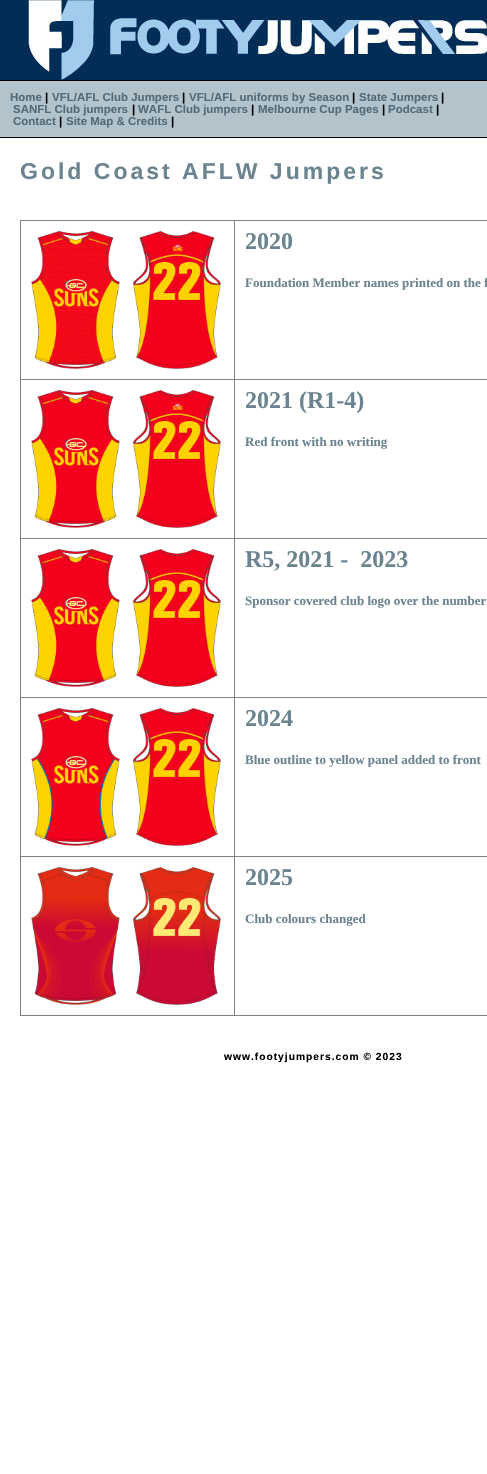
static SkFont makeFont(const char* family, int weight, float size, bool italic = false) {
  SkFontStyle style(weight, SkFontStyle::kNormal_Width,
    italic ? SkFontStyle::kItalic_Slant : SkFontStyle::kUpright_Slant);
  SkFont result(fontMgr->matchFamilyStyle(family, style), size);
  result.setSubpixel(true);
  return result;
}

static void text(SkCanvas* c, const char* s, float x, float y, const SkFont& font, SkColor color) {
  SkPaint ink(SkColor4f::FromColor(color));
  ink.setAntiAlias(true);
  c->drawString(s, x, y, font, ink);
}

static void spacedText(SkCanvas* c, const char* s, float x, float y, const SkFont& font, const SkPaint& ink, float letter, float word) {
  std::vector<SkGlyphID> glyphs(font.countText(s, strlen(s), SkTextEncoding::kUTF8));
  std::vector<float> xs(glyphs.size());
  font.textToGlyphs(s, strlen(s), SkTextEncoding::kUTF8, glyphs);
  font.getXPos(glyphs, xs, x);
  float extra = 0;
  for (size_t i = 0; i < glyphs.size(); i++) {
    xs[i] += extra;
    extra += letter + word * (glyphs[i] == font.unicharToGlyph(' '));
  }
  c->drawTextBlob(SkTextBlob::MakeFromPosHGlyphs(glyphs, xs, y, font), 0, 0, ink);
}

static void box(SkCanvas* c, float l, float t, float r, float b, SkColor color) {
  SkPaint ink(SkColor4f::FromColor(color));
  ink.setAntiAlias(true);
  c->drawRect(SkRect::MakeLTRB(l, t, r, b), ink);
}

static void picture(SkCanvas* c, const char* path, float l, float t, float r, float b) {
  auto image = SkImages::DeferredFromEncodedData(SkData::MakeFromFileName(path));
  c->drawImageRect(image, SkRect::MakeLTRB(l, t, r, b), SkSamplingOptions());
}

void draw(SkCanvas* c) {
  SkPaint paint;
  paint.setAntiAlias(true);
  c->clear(0xffffffff);
  box(c, 0, 0, 24, 80, 0xff012e57);
  picture(c, "img_01.png", 24, 0, 487, 80);
  box(c, 0, 81, 487, 137, 0xffb2c3cc);
  box(c, 0, 80, 487, 81, 0xff000000);
  box(c, 0, 137, 487, 138, 0xff000000);
  SkFont face1 = makeFont("Liberation Sans", 700, 11.5f);
  text(c, "Home", 10, 101, face1, 0xff536b77);
  text(c, "|", 45, 101, face1, 0xff000000);
  text(c, "VFL/AFL Club Jumpers", 52, 101, face1, 0xff536b77);
  text(c, "|", 182, 101, face1, 0xff000000);
  text(c, "VFL/AFL uniforms by Season", 189, 101, face1, 0xff536b77);
  text(c, "|", 352, 101, face1, 0xff000000);
  text(c, "State Jumpers", 359, 101, face1, 0xff536b77);
  text(c, "|", 441, 101, face1, 0xff000000);
  text(c, "SANFL Club jumpers", 13, 113, face1, 0xff536b77);
  text(c, "|", 132, 113, face1, 0xff000000);
  text(c, "WAFL Club jumpers", 138, 113, face1, 0xff536b77);
  text(c, "|", 251, 113, face1, 0xff000000);
  text(c, "Melbourne Cup Pages", 258, 113, face1, 0xff536b77);
  text(c, "|", 382, 113, face1, 0xff000000);
  text(c, "Podcast", 388, 113, face1, 0xff536b77);
  text(c, "|", 436, 113, face1, 0xff000000);
  text(c, "Contact", 13, 125, face1, 0xff536b77);
  text(c, "|", 59, 125, face1, 0xff000000);
  text(c, "Site Map & Credits", 66, 125, face1, 0xff536b77);
  text(c, "|", 171, 125, face1, 0xff000000);
  SkFont face2 = makeFont("Liberation Sans", 700, 23);
  paint.setColor(0xff6b8490);
  spacedText(c, "Gold Coast AFLW Jumpers", 20, 179, face2, paint, 3, 0);
  box(c, 20, 220, 487, 221, 0xff808080);
  box(c, 20, 1015, 487, 1016, 0xff808080);
  box(c, 20, 220, 21, 1016, 0xff808080);
  picture(c, "img_02.png", 31, 231, 221, 369);
  box(c, 234, 379, 487, 380, 0xff808080);
  box(c, 234, 538, 487, 539, 0xff808080);
  box(c, 234, 697, 487, 698, 0xff808080);
  box(c, 234, 856, 487, 857, 0xff808080);
  box(c, 234, 856, 235, 1016, 0xff808080);
  box(c, 20, 856, 235, 857, 0xff808080);
  box(c, 234, 697, 235, 857, 0xff808080);
  box(c, 20, 697, 235, 698, 0xff808080);
  box(c, 234, 538, 235, 698, 0xff808080);
  box(c, 20, 538, 235, 539, 0xff808080);
  box(c, 234, 379, 235, 539, 0xff808080);
  box(c, 20, 379, 235, 380, 0xff808080);
  box(c, 234, 220, 235, 380, 0xff808080);
  SkFont face3 = makeFont("Liberation Serif", 700, 24);
  text(c, "2020", 245, 249, face3, 0xff6b8490);
  SkFont face4 = makeFont("Liberation Serif", 700, 13);
  text(c, "Foundation Member names printed on the f", 245, 287, face4, 0xff6b8490);
  picture(c, "img_03.png", 31, 390, 221, 528);
  text(c, "2021 (R1-4)", 245, 408, face3, 0xff6b8490);
  text(c, "Red front with no writing", 245, 446, face4, 0xff6b8490);
  picture(c, "img_04.png", 31, 549, 221, 687);
  text(c, "R5, 2021 -  2023", 245, 567, face3, 0xff6b8490);
  text(c, "Sponsor covered club logo over the number", 245, 605, face4, 0xff6b8490);
  picture(c, "img_05.png", 31, 708, 221, 846);
  text(c, "2024", 245, 726, face3, 0xff6b8490);
  text(c, "Blue outline to yellow panel added to front", 245, 764, face4, 0xff6b8490);
  picture(c, "img_06.png", 31, 867, 221, 1005);
  text(c, "2025", 245, 885, face3, 0xff6b8490);
  text(c, "Club colours changed", 245, 923, face4, 0xff6b8490);
  SkFont face5 = makeFont("Liberation Sans", 700, 10.25f);
  paint.setColor(0xff000000);
  spacedText(c, "www.footyjumpers.com © 2023", 224, 1060, face5, paint, 1, 0);
}
